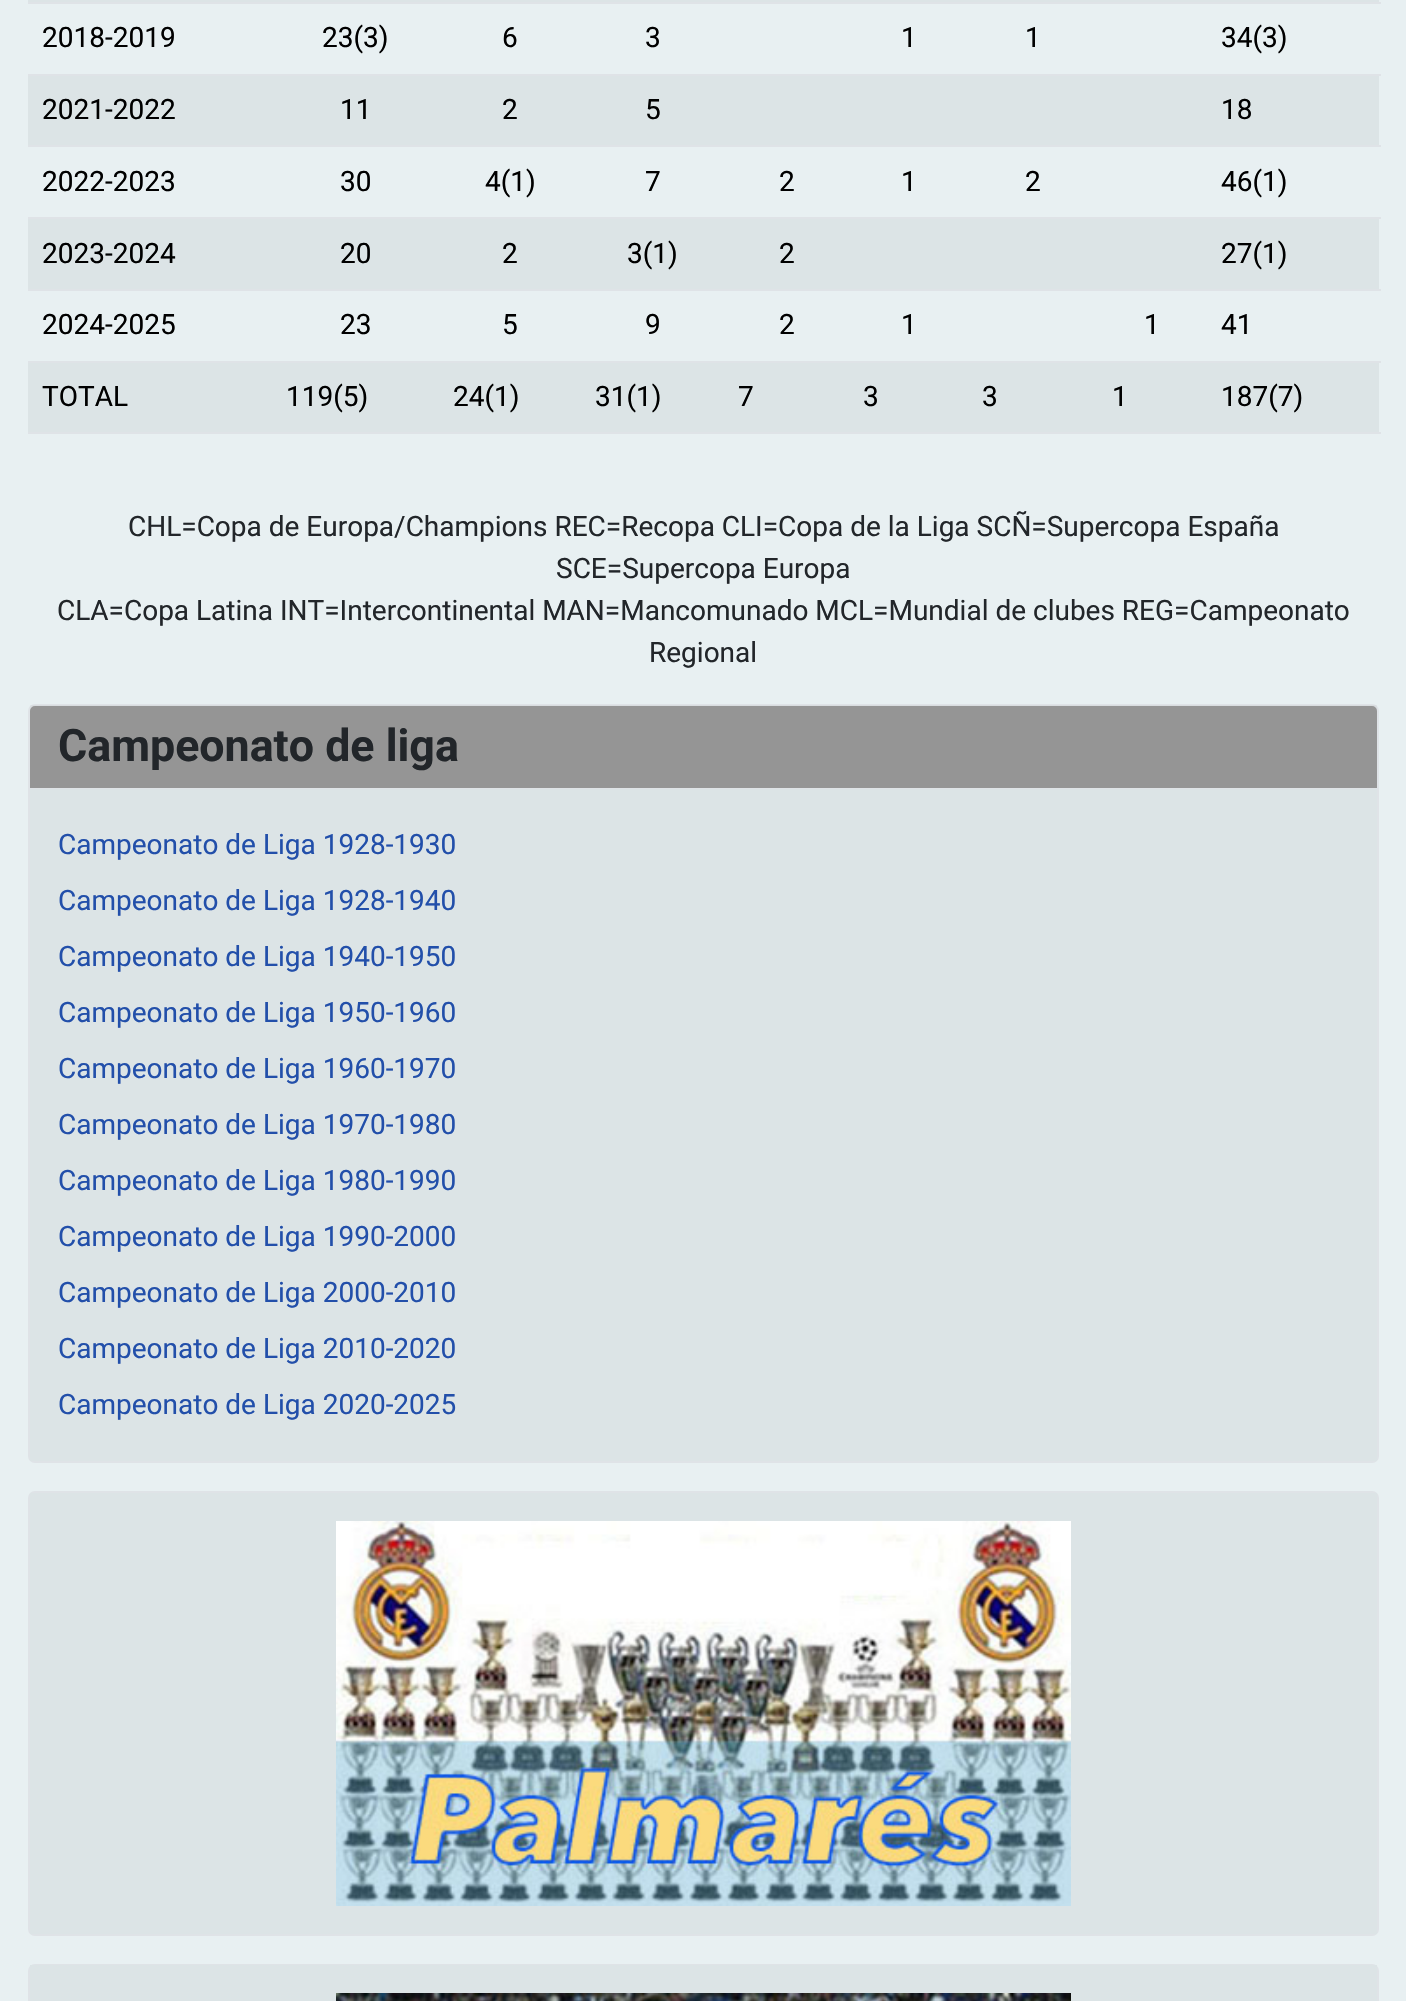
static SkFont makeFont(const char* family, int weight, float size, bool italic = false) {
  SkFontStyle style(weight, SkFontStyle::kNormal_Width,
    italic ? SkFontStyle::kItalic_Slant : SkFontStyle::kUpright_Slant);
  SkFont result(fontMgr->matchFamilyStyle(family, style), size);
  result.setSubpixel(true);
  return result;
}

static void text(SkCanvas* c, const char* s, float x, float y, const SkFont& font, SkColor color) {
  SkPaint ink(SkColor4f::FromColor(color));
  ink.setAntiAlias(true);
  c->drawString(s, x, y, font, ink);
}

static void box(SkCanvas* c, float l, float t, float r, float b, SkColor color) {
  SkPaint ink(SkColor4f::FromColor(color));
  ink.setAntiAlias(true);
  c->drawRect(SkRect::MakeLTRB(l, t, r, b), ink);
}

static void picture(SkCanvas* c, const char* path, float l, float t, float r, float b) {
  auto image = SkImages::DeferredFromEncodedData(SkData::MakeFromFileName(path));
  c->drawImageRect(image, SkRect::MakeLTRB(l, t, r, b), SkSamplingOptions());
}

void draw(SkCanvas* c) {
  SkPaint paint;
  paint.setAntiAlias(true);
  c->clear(0xffe8f0f2);
  box(c, 28, 0, 1379, 2, 0xffdce4e6);
  box(c, 28, 2, 1381, 4, 0xffdfe3e7);
  SkFont face1 = makeFont("Roboto", 400, 28);
  text(c, "2018-2019", 42, 47, face1, 0xff000000);
  text(c, "23(3)", 322, 47, face1, 0xff000000);
  text(c, "6", 502, 47, face1, 0xff000000);
  text(c, "3", 645, 47, face1, 0xff000000);
  text(c, "1", 901, 47, face1, 0xff000000);
  text(c, "1", 1025, 47, face1, 0xff000000);
  box(c, 28, 74, 1381, 76, 0xffdfe3e7);
  text(c, "34(3)", 1221, 47, face1, 0xff000000);
  box(c, 28, 76, 1379, 145, 0xffdce4e6);
  text(c, "2021-2022", 42, 119, face1, 0xff000000);
  text(c, "11", 340, 119, face1, 0xff000000);
  text(c, "2", 502, 119, face1, 0xff000000);
  text(c, "5", 645, 119, face1, 0xff000000);
  box(c, 28, 145, 1381, 147, 0xffdfe3e7);
  text(c, "18", 1221, 119, face1, 0xff000000);
  text(c, "2022-2023", 42, 191, face1, 0xff000000);
  text(c, "30", 340, 191, face1, 0xff000000);
  text(c, "4(1)", 485, 191, face1, 0xff000000);
  text(c, "7", 645, 191, face1, 0xff000000);
  text(c, "2", 779, 191, face1, 0xff000000);
  text(c, "1", 901, 191, face1, 0xff000000);
  text(c, "2", 1025, 191, face1, 0xff000000);
  box(c, 28, 217, 1381, 219, 0xffdfe3e7);
  text(c, "46(1)", 1221, 191, face1, 0xff000000);
  box(c, 28, 219, 1379, 289, 0xffdce4e6);
  text(c, "2023-2024", 42, 263, face1, 0xff000000);
  text(c, "20", 340, 263, face1, 0xff000000);
  text(c, "2", 502, 263, face1, 0xff000000);
  text(c, "3(1)", 627, 263, face1, 0xff000000);
  text(c, "2", 779, 263, face1, 0xff000000);
  box(c, 28, 289, 1381, 291, 0xffdfe3e7);
  text(c, "27(1)", 1221, 263, face1, 0xff000000);
  text(c, "2024-2025", 42, 334, face1, 0xff000000);
  text(c, "23", 340, 334, face1, 0xff000000);
  text(c, "5", 502, 334, face1, 0xff000000);
  text(c, "9", 645, 334, face1, 0xff000000);
  text(c, "2", 779, 334, face1, 0xff000000);
  text(c, "1", 901, 334, face1, 0xff000000);
  text(c, "1", 1144, 334, face1, 0xff000000);
  box(c, 28, 361, 1381, 363, 0xffdfe3e7);
  text(c, "41", 1221, 334, face1, 0xff000000);
  box(c, 28, 363, 1379, 432, 0xffdce4e6);
  text(c, "TOTAL", 42, 406, face1, 0xff000000);
  text(c, "119(5)", 286, 406, face1, 0xff000000);
  text(c, "24(1)", 453, 406, face1, 0xff000000);
  text(c, "31(1)", 595, 406, face1, 0xff000000);
  text(c, "7", 738, 406, face1, 0xff000000);
  text(c, "3", 863, 406, face1, 0xff000000);
  text(c, "3", 982, 406, face1, 0xff000000);
  text(c, "1", 1112, 406, face1, 0xff000000);
  box(c, 28, 432, 1381, 434, 0xffdfe3e7);
  text(c, "187(7)", 1221, 406, face1, 0xff000000);
  text(c, "CHL=Copa de Europa/Champions REC=Recopa CLI=Copa de la Liga SCÑ=Supercopa España", 128, 536, face1, 0xff22262a);
  text(c, "SCE=Supercopa Europa", 556, 578, face1, 0xff22262a);
  text(c, "CLA=Copa Latina INT=Intercontinental MAN=Mancomunado MCL=Mundial de clubes REG=Campeonato", 57, 620, face1, 0xff22262a);
  text(c, "Regional", 649, 662, face1, 0xff22262a);
  paint.setColor(0xff999999);
  c->drawRoundRect(SkRect::MakeLTRB(29, 705, 1378, 1462), 6, 6, paint);
  paint.setStyle(SkPaint::kStroke_Style);
  paint.setStrokeWidth(2);
  paint.setColor(0xffdfe3e7);
  c->drawRoundRect(SkRect::MakeLTRB(29, 705, 1378, 1462), 6, 6, paint);
  box(c, 30, 705, 1377, 788, 0x0822262a);
  box(c, 30, 788, 1377, 789, 0xffdfe3e7);
  SkFont face2 = makeFont("Roboto", 700, 44.75f);
  text(c, "Campeonato de liga", 58, 761, face2, 0xff22262a);
  box(c, 30, 789, 1377, 1461, 0xffdce4e6);
  text(c, "Campeonato de Liga 1928-1930", 58, 854, face1, 0xff224faa);
  text(c, "Campeonato de Liga 1928-1940", 58, 910, face1, 0xff224faa);
  text(c, "Campeonato de Liga 1940-1950", 58, 966, face1, 0xff224faa);
  text(c, "Campeonato de Liga 1950-1960", 58, 1022, face1, 0xff224faa);
  text(c, "Campeonato de Liga 1960-1970", 58, 1078, face1, 0xff224faa);
  text(c, "Campeonato de Liga 1970-1980", 58, 1134, face1, 0xff224faa);
  text(c, "Campeonato de Liga 1980-1990", 58, 1190, face1, 0xff224faa);
  text(c, "Campeonato de Liga 1990-2000", 58, 1246, face1, 0xff224faa);
  text(c, "Campeonato de Liga 2000-2010", 58, 1302, face1, 0xff224faa);
  text(c, "Campeonato de Liga 2010-2020", 58, 1358, face1, 0xff224faa);
  text(c, "Campeonato de Liga 2020-2025", 58, 1414, face1, 0xff224faa);
  c->drawRoundRect(SkRect::MakeLTRB(29, 1492, 1378, 1935), 6, 6, paint);
  box(c, 30, 1493, 1377, 1934, 0xffdce4e6);
  picture(c, "img_01.png", 336, 1521, 1071, 1906);
  c->drawRoundRect(SkRect::MakeLTRB(29, 1965, 1378, 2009), 6, 6, paint);
  box(c, 30, 1965, 1377, 2001, 0xffdce4e6);
  picture(c, "img_02.png", 336, 1993, 1071, 2001);
}
